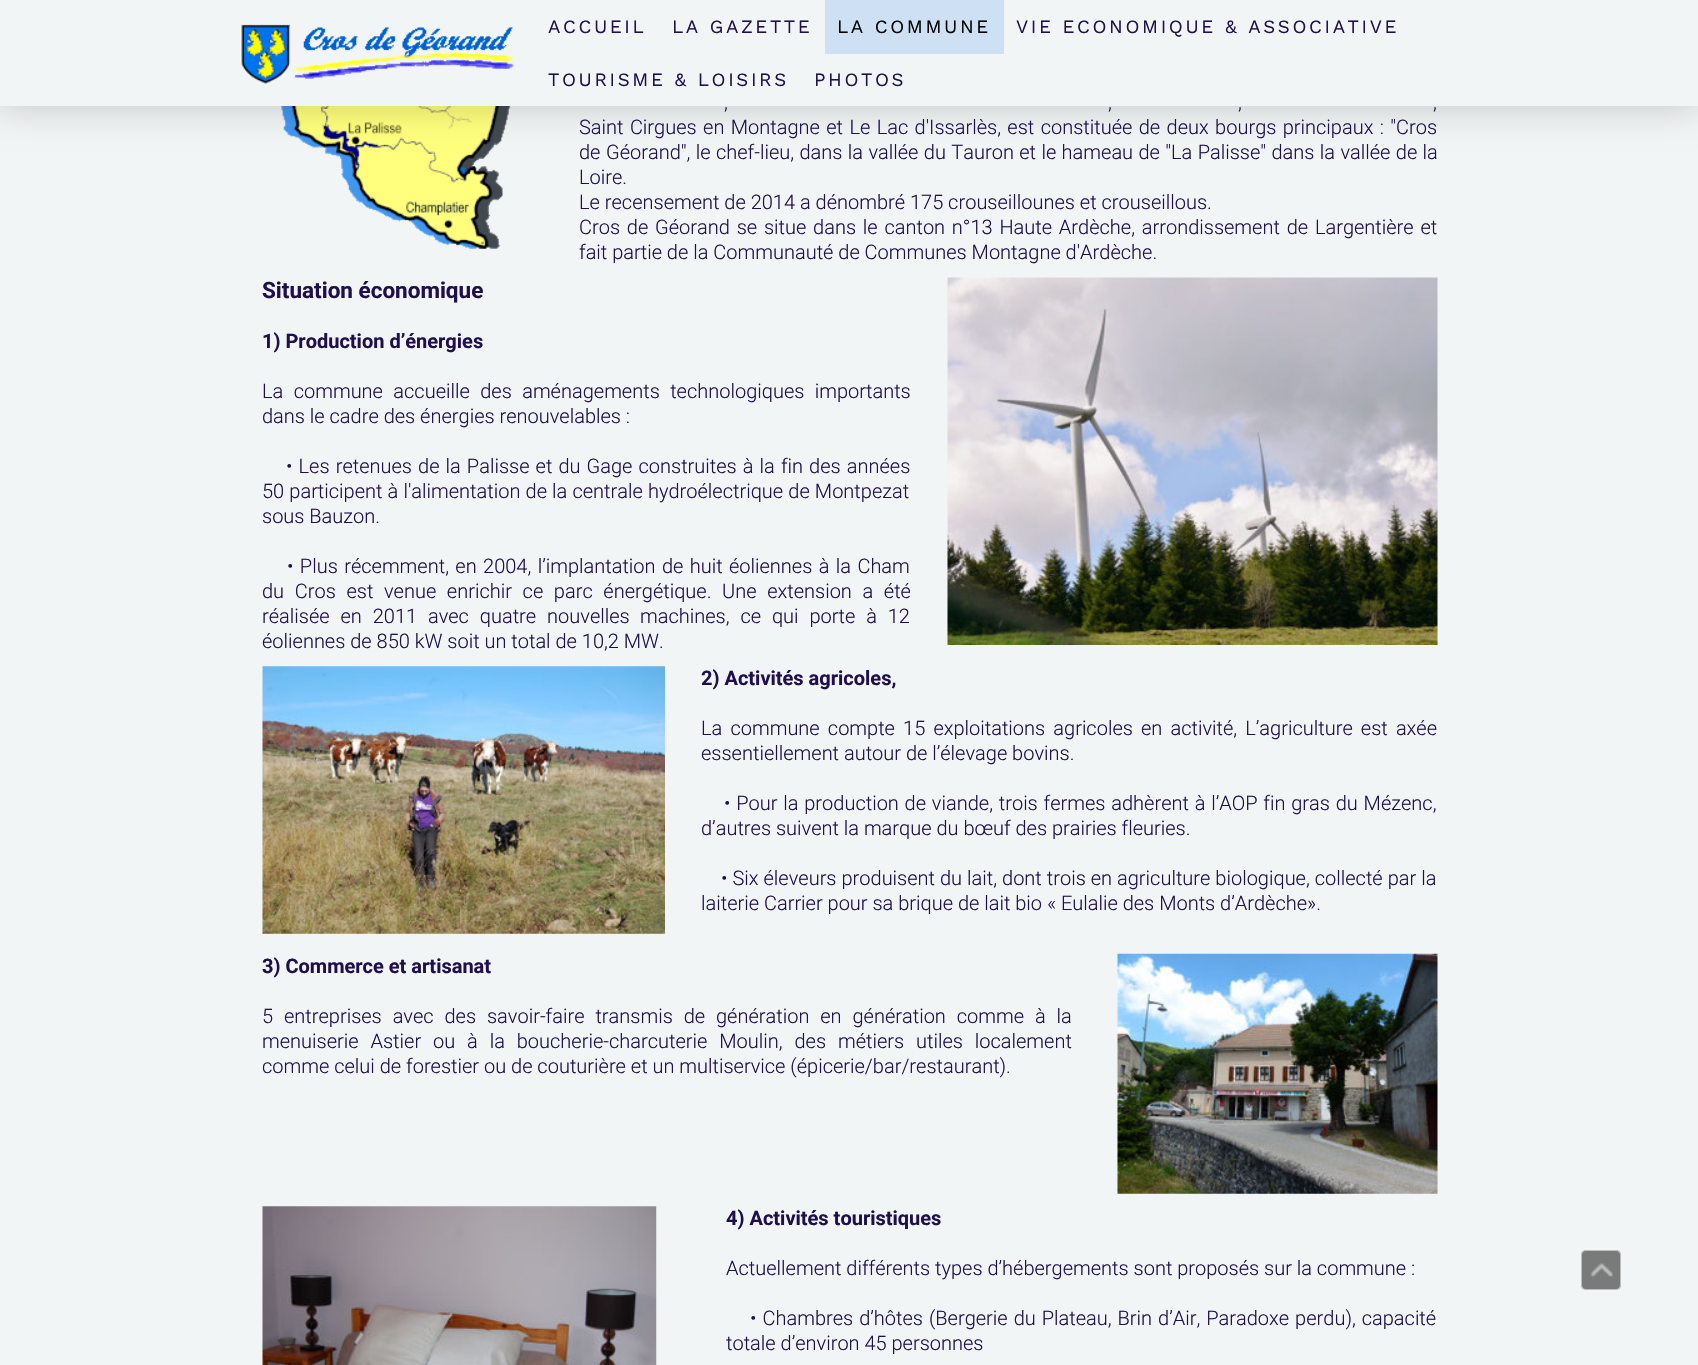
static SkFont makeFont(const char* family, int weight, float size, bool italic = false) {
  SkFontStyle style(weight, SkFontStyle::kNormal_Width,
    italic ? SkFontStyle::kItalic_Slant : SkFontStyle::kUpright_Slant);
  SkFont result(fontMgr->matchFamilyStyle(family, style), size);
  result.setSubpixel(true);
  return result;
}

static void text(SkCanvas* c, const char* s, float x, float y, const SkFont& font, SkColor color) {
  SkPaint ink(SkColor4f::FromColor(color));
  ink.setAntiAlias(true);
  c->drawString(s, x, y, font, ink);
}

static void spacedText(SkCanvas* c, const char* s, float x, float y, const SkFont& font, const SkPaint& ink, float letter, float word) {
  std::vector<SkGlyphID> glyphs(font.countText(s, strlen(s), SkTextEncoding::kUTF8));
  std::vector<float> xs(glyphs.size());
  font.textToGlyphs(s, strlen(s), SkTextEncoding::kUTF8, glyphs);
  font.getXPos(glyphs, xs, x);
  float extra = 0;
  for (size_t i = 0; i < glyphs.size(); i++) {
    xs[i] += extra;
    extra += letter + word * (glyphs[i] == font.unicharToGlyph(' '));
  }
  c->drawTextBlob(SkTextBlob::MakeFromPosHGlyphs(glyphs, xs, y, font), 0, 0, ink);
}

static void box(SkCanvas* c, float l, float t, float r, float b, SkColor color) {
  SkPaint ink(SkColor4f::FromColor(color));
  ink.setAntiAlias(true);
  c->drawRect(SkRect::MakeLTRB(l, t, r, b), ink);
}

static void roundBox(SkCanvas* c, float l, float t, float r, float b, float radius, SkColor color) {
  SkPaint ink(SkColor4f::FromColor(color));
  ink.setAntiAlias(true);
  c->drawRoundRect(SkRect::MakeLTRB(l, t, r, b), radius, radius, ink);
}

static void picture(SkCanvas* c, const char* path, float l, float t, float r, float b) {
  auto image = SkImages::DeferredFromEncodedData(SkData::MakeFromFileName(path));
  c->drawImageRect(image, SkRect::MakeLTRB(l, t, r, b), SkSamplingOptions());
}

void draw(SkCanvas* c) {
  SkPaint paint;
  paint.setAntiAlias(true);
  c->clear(0xfff2f5f5);
  picture(c, "img_02.png", 281, 106, 511, 249);
  paint.setColor(0x33000000);
  paint.setMaskFilter(SkMaskFilter::MakeBlur(kNormal_SkBlurStyle, 19));
  c->drawRect(SkRect::MakeLTRB(0, 0, 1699, 106), paint);
  paint.setMaskFilter(nullptr);
  box(c, 0, 0, 1698, 106, 0xfff2f5f5);
  picture(c, "img_01.png", 240, 24, 514, 84);
  SkFont face1 = makeFont("Work Sans", 400, 18.75f);
  paint.setColor(0xff200f4e);
  spacedText(c, "ACCUEIL", 548, 33, face1, paint, 2.6f, 0);
  spacedText(c, "LA GAZETTE", 672, 33, face1, paint, 2.6f, 0);
  box(c, 825, 0, 1004, 54, 0xffcee1f4);
  paint.setColor(0xff000000);
  spacedText(c, "LA COMMUNE", 837, 33, face1, paint, 2.6f, 0);
  paint.setColor(0xff200f4e);
  spacedText(c, "VIE ECONOMIQUE & ASSOCIATIVE", 1016, 33, face1, paint, 2.6f, 0);
  spacedText(c, "TOURISME & LOISIRS", 548, 86, face1, paint, 2.6f, 0);
  spacedText(c, "PHOTOS", 814, 86, face1, paint, 2.6f, 0);
  SkFont face2 = makeFont("Roboto", 300, 20);
  spacedText(c, ",", 724, 109, face2, paint, 0, 2);
  spacedText(c, ",", 1108, 109, face2, paint, 0, 2);
  spacedText(c, ",", 1238, 109, face2, paint, 0, 2);
  spacedText(c, ",", 1433, 109, face2, paint, 0, 2);
  spacedText(c, "Saint Cirgues en Montagne et Le Lac d'Issarlès, est constituée de deux bourgs principaux : \"Cros", 579, 134, face2, paint, 0, 1.5f);
  text(c, "de", 579, 159, face2, 0xff200f4e);
  spacedText(c, "Géorand\", le chef-lieu, dans la vallée du Tauron et le hameau de \"La Palisse\" dans la vallée de la", 606, 159, face2, paint, 0, 0.5f);
  text(c, "Loire.", 579, 184, face2, 0xff200f4e);
  text(c, "Le recensement de 2014 a dénombré 175 crouseillounes et crouseillous.", 579, 209, face2, 0xff200f4e);
  spacedText(c, "Cros de Géorand se situe dans le canton n°13 Haute Ardèche, arrondissement de Largentière et", 579, 234, face2, paint, 0, 1.9f);
  text(c, "fait partie de la Communauté de Communes Montagne d'Ardèche.", 579, 259, face2, 0xff200f4e);
  SkFont face3 = makeFont("Roboto", 700, 22.5f);
  text(c, "Situation économique", 262, 298, face3, 0xff200f4e);
  SkFont face4 = makeFont("Roboto", 700, 20);
  text(c, "1) Production d’énergies", 262, 348, face4, 0xff200f4e);
  spacedText(c, "La commune accueille des aménagements technologiques importants", 262, 398, face2, paint, 0, 5.5f);
  text(c, "dans le cadre des énergies renouvelables :", 262, 423, face2, 0xff200f4e);
  spacedText(c, "• Les retenues de la Palisse et du Gage construites à la fin des années", 286, 473, face2, paint, 0, 1.2f);
  spacedText(c, "50 participent à l'alimentation de la centrale hydroélectrique de Montpezat", 262, 498, face2, paint, 0, 0.25f);
  text(c, "sous Bauzon.", 262, 523, face2, 0xff200f4e);
  spacedText(c, "• Plus récemment, en 2004, l’implantation de huit éoliennes à la Cham", 287, 573, face2, paint, 0, 1.5f);
  spacedText(c, "du Cros est venue enrichir ce parc énergétique. Une extension a été", 262, 598, face2, paint, 0, 5.75f);
  spacedText(c, "réalisée en 2011 avec quatre nouvelles", 262, 623, face2, paint, 0, 6);
  spacedText(c, "machines, ce qui porte à 12", 640, 623, face2, paint, 0, 6);
  text(c, "éoliennes de 850 kW soit un total de 10,2 MW.", 262, 648, face2, 0xff200f4e);
  picture(c, "img_03.png", 947, 277, 1438, 645);
  picture(c, "img_04.png", 262, 666, 665, 934);
  text(c, "2) Activités agricoles,", 701, 685, face4, 0xff200f4e);
  spacedText(c, "La commune compte 15 exploitations agricoles en activité, L’agriculture est axée", 701, 735, face2, paint, 0, 3.25f);
  text(c, "essentiellement autour de l’élevage bovins.", 701, 760, face2, 0xff200f4e);
  spacedText(c, "• Pour la production de viande, trois fermes adhèrent à l’AOP fin gras du Mézenc,", 724, 810, face2, paint, 0, 0.9f);
  text(c, "d’autres suivent la marque du bœuf des prairies fleuries.", 701, 835, face2, 0xff200f4e);
  spacedText(c, "• Six éleveurs produisent du lait, dont trois en agriculture biologique, collecté par la", 721, 885, face2, paint, 0, 0.1f);
  text(c, "laiterie Carrier pour sa brique de lait bio « Eulalie des Monts d’Ardèche».", 701, 910, face2, 0xff200f4e);
  text(c, "3) Commerce et artisanat", 262, 973, face4, 0xff200f4e);
  spacedText(c, "5 entreprises avec des savoir-faire transmis de génération en génération comme à la", 262, 1023, face2, paint, 0, 6);
  spacedText(c, "menuiserie Astier ou à la boucherie-charcuterie Moulin, des métiers utiles localement", 262, 1048, face2, paint, 0, 7);
  text(c, "comme celui de forestier ou de couturière et un multiservice (épicerie/bar/restaurant).", 262, 1073, face2, 0xff200f4e);
  picture(c, "img_05.png", 1117, 953, 1438, 1194);
  picture(c, "img_06.png", 262, 1206, 657, 1365);
  text(c, "4) Activités touristiques", 726, 1225, face4, 0xff200f4e);
  text(c, "Actuellement différents types d’hébergements sont proposés sur la commune :", 726, 1275, face2, 0xff200f4e);
  spacedText(c, "• Chambres d’hôtes (Bergerie du Plateau, Brin d’Air, Paradoxe perdu), capacité", 750, 1325, face2, paint, 0, 1.1f);
  text(c, "totale d’environ 45 personnes", 726, 1350, face2, 0xff200f4e);
  roundBox(c, 1581, 1250, 1621, 1290, 5, 0xff797b7b);
  paint.setStyle(SkPaint::kStroke_Style);
  paint.setStrokeWidth(1);
  paint.setColor(0x80ffffff);
  c->drawRoundRect(SkRect::MakeLTRB(1581.5f, 1250.5f, 1620.5f, 1289.5f), 4.5f, 4.5f, paint);
  picture(c, "img_07.png", 1590, 1263, 1613, 1277);
}
